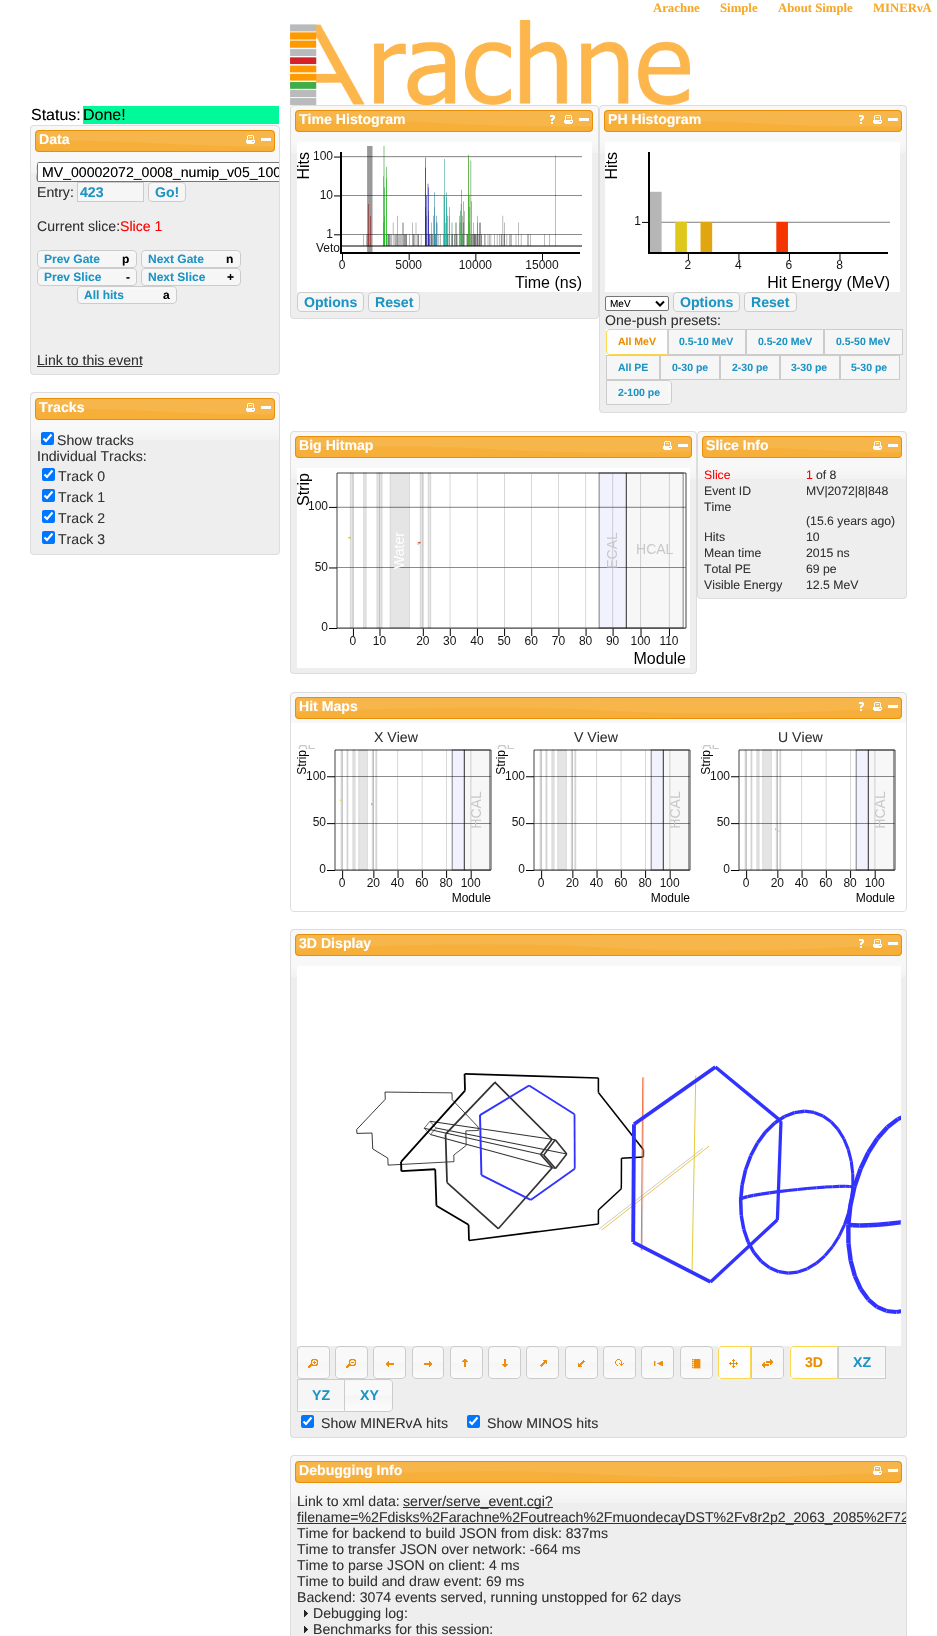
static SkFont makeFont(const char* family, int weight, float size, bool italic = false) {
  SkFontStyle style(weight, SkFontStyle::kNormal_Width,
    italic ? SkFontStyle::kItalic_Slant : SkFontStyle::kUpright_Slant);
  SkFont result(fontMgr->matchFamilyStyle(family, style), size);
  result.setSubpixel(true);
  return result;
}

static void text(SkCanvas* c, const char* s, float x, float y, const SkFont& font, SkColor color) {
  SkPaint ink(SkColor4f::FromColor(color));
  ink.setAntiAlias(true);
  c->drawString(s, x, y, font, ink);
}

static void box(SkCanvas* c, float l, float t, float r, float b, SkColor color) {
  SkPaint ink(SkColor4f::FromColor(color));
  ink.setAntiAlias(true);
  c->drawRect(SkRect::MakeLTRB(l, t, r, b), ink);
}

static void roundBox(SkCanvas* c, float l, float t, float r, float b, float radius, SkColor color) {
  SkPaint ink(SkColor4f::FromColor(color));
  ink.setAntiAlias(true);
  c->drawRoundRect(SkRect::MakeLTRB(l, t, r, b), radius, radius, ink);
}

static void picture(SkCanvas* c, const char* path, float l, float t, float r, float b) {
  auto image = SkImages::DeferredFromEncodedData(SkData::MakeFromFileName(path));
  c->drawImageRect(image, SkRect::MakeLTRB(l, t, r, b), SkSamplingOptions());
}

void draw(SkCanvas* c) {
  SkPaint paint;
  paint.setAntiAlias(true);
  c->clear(0xffffffff);
  SkFont face1 = makeFont("Liberation Serif", 700, 12.75f);
  text(c, "Arachne", 653, 12, face1, 0xfff6a828);
  text(c, "Simple", 720, 12, face1, 0xfff6a828);
  text(c, "About Simple", 778, 12, face1, 0xfff6a828);
  text(c, "MINERνA", 873, 12, face1, 0xfff6a828);
  picture(c, "img_01.png", 290, 20, 690, 105);
  SkFont face2 = makeFont("Liberation Sans", 400, 16);
  text(c, "Status:", 31, 120, face2, 0xff000000);
  box(c, 83, 106, 279, 124, 0xff00fa9a);
  text(c, "Done!", 83, 120, face2, 0xff000000);
  roundBox(c, 30, 125, 280, 375, 4, 0xffeeeeee);
  picture(c, "img_02.png", 30, 126, 280, 173);
  paint.setStyle(SkPaint::kStroke_Style);
  paint.setStrokeWidth(1);
  paint.setColor(0xffdddddd);
  c->drawRoundRect(SkRect::MakeLTRB(30.5f, 125.5f, 279.5f, 374.5f), 3.5f, 3.5f, paint);
  picture(c, "img_03.png", 35, 130, 275, 152);
  paint.setColor(0xffe78f08);
  c->drawRoundRect(SkRect::MakeLTRB(35.5f, 130.5f, 274.5f, 151.5f), 3.5f, 3.5f, paint);
  SkFont face3 = makeFont("Liberation Sans", 700, 14.1f);
  text(c, "Data", 39, 144, face3, 0xffffffff);
  picture(c, "img_04.png", 246, 135, 255, 144);
  box(c, 261, 138, 271, 141, 0xfffcfefc);
  paint.setStyle(SkPaint::kFill_Style);
  paint.setColor(0xffffffff);
  c->drawPath(SkPathBuilder().moveTo(39, 162).lineTo(279, 162).lineTo(279, 182).lineTo(39, 182).cubicTo(38, 182, 37, 181, 37, 180).lineTo(37, 164).cubicTo(37, 163, 38, 162, 39, 162).close().detach(), paint);
  paint.setColor(0xff767676);
  c->drawPath(SkPathBuilder().moveTo(39, 162).cubicTo(36, 162, 37, 170, 37, 172).cubicTo(37, 174, 35, 182, 39, 182).lineTo(279, 182).lineTo(279, 181).lineTo(39, 181).cubicTo(38, 181, 38, 181, 38, 180).lineTo(38, 164).cubicTo(38, 163, 38, 163, 39, 163).lineTo(279, 163).lineTo(279, 162).close().detach(), paint);
  c->save();
  c->clipPath(SkPathBuilder().moveTo(34, 126).lineTo(276, 126).cubicTo(277.5f, 126, 279, 127.5f, 279, 129).lineTo(279, 371).cubicTo(279, 372.5f, 277.5f, 374, 276, 374).lineTo(34, 374).cubicTo(32.5f, 374, 31, 372.5f, 31, 371).lineTo(31, 129).cubicTo(31, 127.5f, 32.5f, 126, 34, 126).close().detach(), true);
  SkFont face4 = makeFont("Liberation Sans", 400, 14.1f);
  text(c, "MV_00002072_0008_numip_v05_100", 42, 177, face4, 0xff000000);
  c->restore();
  text(c, "Entry:", 37, 197, face4, 0xff333333);
  paint.setColor(0xfff6f6f6);
  c->drawRect(SkRect::MakeLTRB(77.5f, 182.5f, 143.5f, 201.5f), paint);
  paint.setStyle(SkPaint::kStroke_Style);
  paint.setColor(0xffcccccc);
  c->drawRect(SkRect::MakeLTRB(77.5f, 182.5f, 143.5f, 201.5f), paint);
  text(c, "423", 80, 197, face3, 0xff1c94c4);
  roundBox(c, 148, 182, 186, 202, 4, 0xfff6f6f6);
  picture(c, "img_05.png", 148, 184, 186, 185);
  c->drawRoundRect(SkRect::MakeLTRB(148.5f, 182.5f, 185.5f, 201.5f), 3.5f, 3.5f, paint);
  text(c, "Go!", 155, 197, face3, 0xff1c94c4);
  text(c, "Current slice:", 37, 231, face4, 0xff333333);
  text(c, "Slice 1", 120, 231, face4, 0xffff0000);
  roundBox(c, 37, 250, 137, 268, 4, 0xfff6f6f6);
  picture(c, "img_06.png", 37, 252, 137, 253);
  c->drawRoundRect(SkRect::MakeLTRB(37.5f, 250.5f, 136.5f, 267.5f), 3.5f, 3.5f, paint);
  SkFont face5 = makeFont("Liberation Sans", 700, 12);
  text(c, "Prev Gate", 44, 263, face5, 0xff1c94c4);
  text(c, "p", 122, 263, face5, 0xff000000);
  roundBox(c, 141, 250, 241, 268, 4, 0xfff6f6f6);
  picture(c, "img_06.png", 141, 252, 241, 253);
  c->drawRoundRect(SkRect::MakeLTRB(141.5f, 250.5f, 240.5f, 267.5f), 3.5f, 3.5f, paint);
  text(c, "Next Gate", 148, 263, face5, 0xff1c94c4);
  text(c, "n", 226, 263, face5, 0xff000000);
  roundBox(c, 37, 268, 137, 286, 4, 0xfff6f6f6);
  picture(c, "img_06.png", 37, 270, 137, 271);
  c->drawRoundRect(SkRect::MakeLTRB(37.5f, 268.5f, 136.5f, 285.5f), 3.5f, 3.5f, paint);
  text(c, "Prev Slice", 44, 281, face5, 0xff1c94c4);
  text(c, "-", 126, 281, face5, 0xff000000);
  roundBox(c, 141, 268, 241, 286, 4, 0xfff6f6f6);
  picture(c, "img_06.png", 141, 270, 241, 271);
  c->drawRoundRect(SkRect::MakeLTRB(141.5f, 268.5f, 240.5f, 285.5f), 3.5f, 3.5f, paint);
  text(c, "Next Slice", 148, 281, face5, 0xff1c94c4);
  text(c, "+", 227, 281, face5, 0xff000000);
  roundBox(c, 77, 286, 177, 304, 4, 0xfff6f6f6);
  picture(c, "img_06.png", 77, 288, 177, 289);
  c->drawRoundRect(SkRect::MakeLTRB(77.5f, 286.5f, 176.5f, 303.5f), 3.5f, 3.5f, paint);
  text(c, "All hits", 84, 299, face5, 0xff1c94c4);
  text(c, "a", 163, 299, face5, 0xff000000);
  text(c, "Link to this event", 37, 365, face4, 0xff333333);
  box(c, 37, 366, 142, 367, 0xff333333);
  roundBox(c, 30, 392, 280, 555, 4, 0xffeeeeee);
  picture(c, "img_02.png", 30, 393, 280, 440);
  paint.setColor(0xffdddddd);
  c->drawRoundRect(SkRect::MakeLTRB(30.5f, 392.5f, 279.5f, 554.5f), 3.5f, 3.5f, paint);
  picture(c, "img_03.png", 35, 398, 275, 420);
  paint.setColor(0xffe78f08);
  c->drawRoundRect(SkRect::MakeLTRB(35.5f, 398.5f, 274.5f, 419.5f), 3.5f, 3.5f, paint);
  text(c, "Tracks", 39, 412, face3, 0xffffffff);
  picture(c, "img_04.png", 246, 403, 255, 412);
  box(c, 261, 406, 271, 409, 0xfffcfefc);
  roundBox(c, 41, 432, 54, 445, 2, 0xff0075ff);
  paint.setStrokeWidth(2.1f);
  paint.setColor(0xffffffff);
  c->drawPath(SkPathBuilder().moveTo(43.5f, 438.5f).lineTo(46, 441).lineTo(51.5f, 434.5f).detach(), paint);
  text(c, "Show tracks", 57, 445, face4, 0xff333333);
  text(c, "Individual Tracks:", 37, 461, face4, 0xff333333);
  roundBox(c, 42, 468, 55, 481, 2, 0xff0075ff);
  c->drawPath(SkPathBuilder().moveTo(44.5f, 474.5f).lineTo(47, 477).lineTo(52.5f, 470.5f).detach(), paint);
  text(c, "Track 0", 58, 481, face4, 0xff333333);
  roundBox(c, 42, 489, 55, 502, 2, 0xff0075ff);
  c->drawPath(SkPathBuilder().moveTo(44.5f, 495.5f).lineTo(47, 498).lineTo(52.5f, 491.5f).detach(), paint);
  text(c, "Track 1", 58, 502, face4, 0xff333333);
  roundBox(c, 42, 510, 55, 523, 2, 0xff0075ff);
  c->drawPath(SkPathBuilder().moveTo(44.5f, 516.5f).lineTo(47, 519).lineTo(52.5f, 512.5f).detach(), paint);
  text(c, "Track 2", 58, 523, face4, 0xff333333);
  roundBox(c, 42, 531, 55, 544, 2, 0xff0075ff);
  c->drawPath(SkPathBuilder().moveTo(44.5f, 537.5f).lineTo(47, 540).lineTo(52.5f, 533.5f).detach(), paint);
  text(c, "Track 3", 58, 544, face4, 0xff333333);
  roundBox(c, 290, 105, 599, 319, 4, 0xffeeeeee);
  picture(c, "img_07.png", 290, 106, 599, 153);
  paint.setStrokeWidth(1);
  paint.setColor(0xffdddddd);
  c->drawRoundRect(SkRect::MakeLTRB(290.5f, 105.5f, 598.5f, 318.5f), 3.5f, 3.5f, paint);
  picture(c, "img_08.png", 295, 110, 593, 132);
  paint.setColor(0xffe78f08);
  c->drawRoundRect(SkRect::MakeLTRB(295.5f, 110.5f, 592.5f, 131.5f), 3.5f, 3.5f, paint);
  text(c, "Time Histogram", 299, 124, face3, 0xffffffff);
  picture(c, "img_09.png", 550, 115, 555, 124);
  picture(c, "img_10.png", 564, 115, 573, 124);
  box(c, 579, 118, 589, 121, 0xfffcfefc);
  picture(c, "img_11.png", 297, 142, 592, 292);
  roundBox(c, 297, 292, 364, 312, 4, 0xfff6f6f6);
  picture(c, "img_12.png", 297, 294, 364, 295);
  paint.setColor(0xffcccccc);
  c->drawRoundRect(SkRect::MakeLTRB(297.5f, 292.5f, 363.5f, 311.5f), 3.5f, 3.5f, paint);
  text(c, "Options", 304, 307, face3, 0xff1c94c4);
  roundBox(c, 368, 292, 420, 312, 4, 0xfff6f6f6);
  picture(c, "img_13.png", 368, 294, 420, 295);
  c->drawRoundRect(SkRect::MakeLTRB(368.5f, 292.5f, 419.5f, 311.5f), 3.5f, 3.5f, paint);
  text(c, "Reset", 375, 307, face3, 0xff1c94c4);
  roundBox(c, 599, 105, 907, 413, 4, 0xffeeeeee);
  picture(c, "img_14.png", 599, 106, 907, 153);
  paint.setColor(0xffdddddd);
  c->drawRoundRect(SkRect::MakeLTRB(599.5f, 105.5f, 906.5f, 412.5f), 3.5f, 3.5f, paint);
  picture(c, "img_08.png", 604, 110, 902, 132);
  paint.setColor(0xffe78f08);
  c->drawRoundRect(SkRect::MakeLTRB(604.5f, 110.5f, 901.5f, 131.5f), 3.5f, 3.5f, paint);
  text(c, "PH Histogram", 608, 124, face3, 0xffffffff);
  picture(c, "img_09.png", 859, 115, 864, 124);
  picture(c, "img_10.png", 873, 115, 882, 124);
  box(c, 888, 118, 898, 121, 0xfffcfefc);
  picture(c, "img_15.png", 605, 142, 900, 292);
  paint.setStyle(SkPaint::kFill_Style);
  paint.setColor(0xffffffff);
  c->drawRoundRect(SkRect::MakeLTRB(605.5f, 296.5f, 668.5f, 310.5f), 1.5f, 1.5f, paint);
  paint.setStyle(SkPaint::kStroke_Style);
  paint.setColor(0xff767676);
  c->drawRoundRect(SkRect::MakeLTRB(605.5f, 296.5f, 668.5f, 310.5f), 1.5f, 1.5f, paint);
  paint.setStrokeWidth(2);
  paint.setColor(0xff000000);
  c->drawPath(SkPathBuilder().moveTo(656, 301.5f).lineTo(660, 305.5f).lineTo(664, 301.5f).detach(), paint);
  SkFont face6 = makeFont("Liberation Sans", 400, 10);
  text(c, "MeV", 610, 307, face6, 0xff000000);
  roundBox(c, 673, 292, 740, 312, 4, 0xfff6f6f6);
  picture(c, "img_12.png", 673, 294, 740, 295);
  paint.setStrokeWidth(1);
  paint.setColor(0xffcccccc);
  c->drawRoundRect(SkRect::MakeLTRB(673.5f, 292.5f, 739.5f, 311.5f), 3.5f, 3.5f, paint);
  text(c, "Options", 680, 307, face3, 0xff1c94c4);
  roundBox(c, 744, 292, 797, 312, 4, 0xfff6f6f6);
  picture(c, "img_16.png", 744, 294, 797, 295);
  c->drawRoundRect(SkRect::MakeLTRB(744.5f, 292.5f, 796.5f, 311.5f), 3.5f, 3.5f, paint);
  text(c, "Reset", 751, 307, face3, 0xff1c94c4);
  text(c, "One-push presets:", 605, 325, face4, 0xff333333);
  box(c, 606, 329, 667, 355, 0xfffefefe);
  paint.setColor(0xfffbd850);
  c->drawPath(SkPathBuilder().moveTo(610, 329.5f).lineTo(667.5f, 329.5f).lineTo(667.5f, 354.5f).lineTo(610, 354.5f).cubicTo(608, 354.5f, 606.5f, 353, 606.5f, 351).lineTo(606.5f, 333).cubicTo(606.5f, 331, 608, 329.5f, 610, 329.5f).close().detach(), paint);
  SkFont face7 = makeFont("Liberation Sans", 700, 10.5f);
  text(c, "All MeV", 618, 345, face7, 0xffeb8f00);
  paint.setStyle(SkPaint::kFill_Style);
  paint.setColor(0xfff6f6f6);
  c->drawRect(SkRect::MakeLTRB(668.5f, 329.5f, 745.5f, 354.5f), paint);
  paint.setStyle(SkPaint::kStroke_Style);
  paint.setColor(0xffcccccc);
  c->drawRect(SkRect::MakeLTRB(668.5f, 329.5f, 745.5f, 354.5f), paint);
  text(c, "0.5-10 MeV", 679, 345, face7, 0xff1c94c4);
  paint.setStyle(SkPaint::kFill_Style);
  paint.setColor(0xfff6f6f6);
  c->drawRect(SkRect::MakeLTRB(746.5f, 329.5f, 823.5f, 354.5f), paint);
  paint.setStyle(SkPaint::kStroke_Style);
  paint.setColor(0xffcccccc);
  c->drawRect(SkRect::MakeLTRB(746.5f, 329.5f, 823.5f, 354.5f), paint);
  text(c, "0.5-20 MeV", 758, 345, face7, 0xff1c94c4);
  paint.setStyle(SkPaint::kFill_Style);
  paint.setColor(0xfff6f6f6);
  c->drawRect(SkRect::MakeLTRB(824.5f, 329.5f, 902.5f, 354.5f), paint);
  paint.setStyle(SkPaint::kStroke_Style);
  paint.setColor(0xffcccccc);
  c->drawRect(SkRect::MakeLTRB(824.5f, 329.5f, 902.5f, 354.5f), paint);
  text(c, "0.5-50 MeV", 836, 345, face7, 0xff1c94c4);
  paint.setStyle(SkPaint::kFill_Style);
  paint.setColor(0xfff6f6f6);
  c->drawRect(SkRect::MakeLTRB(606.5f, 355.5f, 659.5f, 379.5f), paint);
  paint.setStyle(SkPaint::kStroke_Style);
  paint.setColor(0xffcccccc);
  c->drawRect(SkRect::MakeLTRB(606.5f, 355.5f, 659.5f, 379.5f), paint);
  text(c, "All PE", 618, 371, face7, 0xff1c94c4);
  paint.setStyle(SkPaint::kFill_Style);
  paint.setColor(0xfff6f6f6);
  c->drawRect(SkRect::MakeLTRB(660.5f, 355.5f, 719.5f, 379.5f), paint);
  paint.setStyle(SkPaint::kStroke_Style);
  paint.setColor(0xffcccccc);
  c->drawRect(SkRect::MakeLTRB(660.5f, 355.5f, 719.5f, 379.5f), paint);
  text(c, "0-30 pe", 672, 371, face7, 0xff1c94c4);
  paint.setStyle(SkPaint::kFill_Style);
  paint.setColor(0xfff6f6f6);
  c->drawRect(SkRect::MakeLTRB(720.5f, 355.5f, 779.5f, 379.5f), paint);
  paint.setStyle(SkPaint::kStroke_Style);
  paint.setColor(0xffcccccc);
  c->drawRect(SkRect::MakeLTRB(720.5f, 355.5f, 779.5f, 379.5f), paint);
  text(c, "2-30 pe", 732, 371, face7, 0xff1c94c4);
  paint.setStyle(SkPaint::kFill_Style);
  paint.setColor(0xfff6f6f6);
  c->drawRect(SkRect::MakeLTRB(780.5f, 355.5f, 839.5f, 379.5f), paint);
  paint.setStyle(SkPaint::kStroke_Style);
  paint.setColor(0xffcccccc);
  c->drawRect(SkRect::MakeLTRB(780.5f, 355.5f, 839.5f, 379.5f), paint);
  text(c, "3-30 pe", 791, 371, face7, 0xff1c94c4);
  paint.setStyle(SkPaint::kFill_Style);
  paint.setColor(0xfff6f6f6);
  c->drawRect(SkRect::MakeLTRB(840.5f, 355.5f, 899.5f, 379.5f), paint);
  paint.setStyle(SkPaint::kStroke_Style);
  paint.setColor(0xffcccccc);
  c->drawRect(SkRect::MakeLTRB(840.5f, 355.5f, 899.5f, 379.5f), paint);
  text(c, "5-30 pe", 851, 371, face7, 0xff1c94c4);
  paint.setStyle(SkPaint::kFill_Style);
  paint.setColor(0xfff6f6f6);
  c->drawPath(SkPathBuilder().moveTo(606, 380).lineTo(668, 380).cubicTo(670, 380, 672, 382, 672, 384).lineTo(672, 401).cubicTo(672, 403, 670, 405, 668, 405).lineTo(606, 405).close().detach(), paint);
  picture(c, "img_17.png", 668, 382, 672, 405);
  paint.setStyle(SkPaint::kStroke_Style);
  paint.setColor(0xffcccccc);
  c->drawPath(SkPathBuilder().moveTo(606.5f, 380.5f).lineTo(668, 380.5f).cubicTo(670, 380.5f, 671.5f, 382, 671.5f, 384).lineTo(671.5f, 401).cubicTo(671.5f, 403, 670, 404.5f, 668, 404.5f).lineTo(606.5f, 404.5f).close().detach(), paint);
  text(c, "2-100 pe", 618, 396, face7, 0xff1c94c4);
  roundBox(c, 290, 431, 697, 674, 4, 0xffeeeeee);
  picture(c, "img_18.png", 290, 432, 697, 479);
  paint.setColor(0xffdddddd);
  c->drawRoundRect(SkRect::MakeLTRB(290.5f, 431.5f, 696.5f, 673.5f), 3.5f, 3.5f, paint);
  picture(c, "img_19.png", 295, 436, 692, 458);
  paint.setColor(0xffe78f08);
  c->drawRoundRect(SkRect::MakeLTRB(295.5f, 436.5f, 691.5f, 457.5f), 3.5f, 3.5f, paint);
  text(c, "Big Hitmap", 299, 450, face3, 0xffffffff);
  picture(c, "img_20.png", 663, 441, 672, 450);
  box(c, 678, 444, 688, 447, 0xfffcfefc);
  picture(c, "img_21.png", 297, 468, 690, 668);
  roundBox(c, 697, 431, 907, 599, 4, 0xffeeeeee);
  picture(c, "img_22.png", 697, 432, 907, 479);
  paint.setColor(0xffdddddd);
  c->drawRoundRect(SkRect::MakeLTRB(697.5f, 431.5f, 906.5f, 598.5f), 3.5f, 3.5f, paint);
  picture(c, "img_23.png", 702, 436, 902, 458);
  paint.setColor(0xffe78f08);
  c->drawRoundRect(SkRect::MakeLTRB(702.5f, 436.5f, 901.5f, 457.5f), 3.5f, 3.5f, paint);
  text(c, "Slice Info", 706, 450, face3, 0xffffffff);
  picture(c, "img_20.png", 873, 441, 882, 450);
  box(c, 888, 444, 898, 447, 0xfffcfefc);
  SkFont face8 = makeFont("Liberation Sans", 400, 12.25f);
  text(c, "Slice", 704, 479, face8, 0xffff0000);
  text(c, "1", 806, 479, face8, 0xffff0000);
  text(c, "of 8", 816, 479, face8, 0xff333333);
  text(c, "Event ID", 704, 495, face8, 0xff333333);
  text(c, "MV|2072|8|848", 806, 495, face8, 0xff333333);
  text(c, "Time", 704, 511, face8, 0xff333333);
  text(c, "(15.6 years ago)", 806, 525, face8, 0xff333333);
  text(c, "Hits", 704, 541, face8, 0xff333333);
  text(c, "10", 806, 541, face8, 0xff333333);
  text(c, "Mean time", 704, 557, face8, 0xff333333);
  text(c, "2015 ns", 806, 557, face8, 0xff333333);
  text(c, "Total PE", 704, 573, face8, 0xff333333);
  text(c, "69 pe", 806, 573, face8, 0xff333333);
  text(c, "Visible Energy", 704, 589, face8, 0xff333333);
  text(c, "12.5 MeV", 806, 589, face8, 0xff333333);
  picture(c, "img_24.png", 290, 693, 907, 723);
  paint.setColor(0xffdddddd);
  c->drawRoundRect(SkRect::MakeLTRB(290.5f, 692.5f, 906.5f, 911.5f), 3.5f, 3.5f, paint);
  picture(c, "img_25.png", 295, 697, 902, 719);
  paint.setColor(0xffe78f08);
  c->drawRoundRect(SkRect::MakeLTRB(295.5f, 697.5f, 901.5f, 718.5f), 3.5f, 3.5f, paint);
  text(c, "Hit Maps", 299, 711, face3, 0xffffffff);
  picture(c, "img_26.png", 859, 702, 864, 711);
  picture(c, "img_27.png", 873, 702, 882, 711);
  box(c, 888, 705, 898, 708, 0xfffcfefc);
  paint.setStyle(SkPaint::kFill_Style);
  paint.setColor(0xffffffff);
  c->drawPath(SkPathBuilder().moveTo(291, 723).lineTo(906, 723).lineTo(906, 908).cubicTo(906, 909.5f, 904.5f, 911, 903, 911).lineTo(294, 911).cubicTo(292.5f, 911, 291, 909.5f, 291, 908).close().detach(), paint);
  text(c, "X View", 374, 742, face4, 0xff333333);
  picture(c, "img_28.png", 297, 745, 492, 902);
  text(c, "V View", 574, 742, face4, 0xff333333);
  picture(c, "img_29.png", 496, 745, 691, 902);
  text(c, "U View", 778, 742, face4, 0xff333333);
  picture(c, "img_30.png", 701, 745, 896, 902);
  roundBox(c, 290, 929, 907, 1438, 4, 0xffeeeeee);
  picture(c, "img_31.png", 290, 930, 907, 977);
  paint.setStyle(SkPaint::kStroke_Style);
  paint.setColor(0xffdddddd);
  c->drawRoundRect(SkRect::MakeLTRB(290.5f, 929.5f, 906.5f, 1437.5f), 3.5f, 3.5f, paint);
  picture(c, "img_25.png", 295, 934, 902, 956);
  paint.setColor(0xffe78f08);
  c->drawRoundRect(SkRect::MakeLTRB(295.5f, 934.5f, 901.5f, 955.5f), 3.5f, 3.5f, paint);
  text(c, "3D Display", 299, 948, face3, 0xffffffff);
  picture(c, "img_26.png", 859, 939, 864, 948);
  picture(c, "img_27.png", 873, 939, 882, 948);
  box(c, 888, 942, 898, 945, 0xfffcfefc);
  picture(c, "img_32.png", 297, 966, 901, 1346);
  roundBox(c, 297, 1346, 330, 1379, 4, 0xfff6f6f6);
  picture(c, "img_33.png", 297, 1348, 330, 1379);
  paint.setColor(0xffcccccc);
  c->drawRoundRect(SkRect::MakeLTRB(297.5f, 1346.5f, 329.5f, 1378.5f), 3.5f, 3.5f, paint);
  picture(c, "img_34.png", 308, 1359, 318, 1368);
  roundBox(c, 335, 1346, 368, 1379, 4, 0xfff6f6f6);
  picture(c, "img_33.png", 335, 1348, 368, 1379);
  c->drawRoundRect(SkRect::MakeLTRB(335.5f, 1346.5f, 367.5f, 1378.5f), 3.5f, 3.5f, paint);
  picture(c, "img_35.png", 346, 1359, 356, 1368);
  roundBox(c, 373, 1346, 406, 1379, 4, 0xfff6f6f6);
  picture(c, "img_33.png", 373, 1348, 406, 1379);
  c->drawRoundRect(SkRect::MakeLTRB(373.5f, 1346.5f, 405.5f, 1378.5f), 3.5f, 3.5f, paint);
  picture(c, "img_36.png", 386, 1361, 394, 1367);
  roundBox(c, 412, 1346, 444, 1379, 4, 0xfff6f6f6);
  picture(c, "img_37.png", 412, 1348, 444, 1379);
  c->drawRoundRect(SkRect::MakeLTRB(412.5f, 1346.5f, 443.5f, 1378.5f), 3.5f, 3.5f, paint);
  picture(c, "img_38.png", 424, 1361, 432, 1367);
  roundBox(c, 450, 1346, 483, 1379, 4, 0xfff6f6f6);
  picture(c, "img_33.png", 450, 1348, 483, 1379);
  c->drawRoundRect(SkRect::MakeLTRB(450.5f, 1346.5f, 482.5f, 1378.5f), 3.5f, 3.5f, paint);
  picture(c, "img_39.png", 462, 1359, 468, 1367);
  roundBox(c, 488, 1346, 521, 1379, 4, 0xfff6f6f6);
  picture(c, "img_33.png", 488, 1348, 521, 1379);
  c->drawRoundRect(SkRect::MakeLTRB(488.5f, 1346.5f, 520.5f, 1378.5f), 3.5f, 3.5f, paint);
  picture(c, "img_40.png", 502, 1359, 508, 1367);
  roundBox(c, 526, 1346, 559, 1379, 4, 0xfff6f6f6);
  picture(c, "img_33.png", 526, 1348, 559, 1379);
  c->drawRoundRect(SkRect::MakeLTRB(526.5f, 1346.5f, 558.5f, 1378.5f), 3.5f, 3.5f, paint);
  picture(c, "img_41.png", 540, 1360, 547, 1367);
  roundBox(c, 565, 1346, 598, 1379, 4, 0xfff6f6f6);
  picture(c, "img_33.png", 565, 1348, 598, 1379);
  c->drawRoundRect(SkRect::MakeLTRB(565.5f, 1346.5f, 597.5f, 1378.5f), 3.5f, 3.5f, paint);
  picture(c, "img_42.png", 578, 1360, 585, 1367);
  roundBox(c, 603, 1346, 636, 1379, 4, 0xfff6f6f6);
  picture(c, "img_33.png", 603, 1348, 636, 1379);
  c->drawRoundRect(SkRect::MakeLTRB(603.5f, 1346.5f, 635.5f, 1378.5f), 3.5f, 3.5f, paint);
  picture(c, "img_43.png", 615, 1359, 624, 1366);
  roundBox(c, 641, 1346, 674, 1379, 4, 0xfff6f6f6);
  picture(c, "img_33.png", 641, 1348, 674, 1379);
  c->drawRoundRect(SkRect::MakeLTRB(641.5f, 1346.5f, 673.5f, 1378.5f), 3.5f, 3.5f, paint);
  picture(c, "img_44.png", 654, 1361, 663, 1366);
  roundBox(c, 680, 1346, 713, 1379, 4, 0xfff6f6f6);
  picture(c, "img_33.png", 680, 1348, 713, 1379);
  c->drawRoundRect(SkRect::MakeLTRB(680.5f, 1346.5f, 712.5f, 1378.5f), 3.5f, 3.5f, paint);
  picture(c, "img_45.png", 692, 1359, 701, 1369);
  box(c, 718, 1346, 750, 1379, 0xfffefefe);
  paint.setColor(0xfffbd850);
  c->drawPath(SkPathBuilder().moveTo(722, 1346.5f).lineTo(750.5f, 1346.5f).lineTo(750.5f, 1378.5f).lineTo(722, 1378.5f).cubicTo(720, 1378.5f, 718.5f, 1377, 718.5f, 1375).lineTo(718.5f, 1350).cubicTo(718.5f, 1348, 720, 1346.5f, 722, 1346.5f).close().detach(), paint);
  picture(c, "img_46.png", 729, 1359, 738, 1368);
  paint.setStyle(SkPaint::kFill_Style);
  paint.setColor(0xfff6f6f6);
  c->drawPath(SkPathBuilder().moveTo(751, 1346).lineTo(780, 1346).cubicTo(782, 1346, 784, 1348, 784, 1350).lineTo(784, 1375).cubicTo(784, 1377, 782, 1379, 780, 1379).lineTo(751, 1379).close().detach(), paint);
  picture(c, "img_47.png", 752, 1348, 784, 1379);
  paint.setStyle(SkPaint::kStroke_Style);
  paint.setColor(0xffcccccc);
  c->drawPath(SkPathBuilder().moveTo(751.5f, 1346.5f).lineTo(780, 1346.5f).cubicTo(782, 1346.5f, 783.5f, 1348, 783.5f, 1350).lineTo(783.5f, 1375).cubicTo(783.5f, 1377, 782, 1378.5f, 780, 1378.5f).lineTo(751.5f, 1378.5f).close().detach(), paint);
  picture(c, "img_48.png", 762, 1359, 773, 1368);
  box(c, 790, 1346, 837, 1379, 0xfffefefe);
  paint.setColor(0xfffbd850);
  c->drawPath(SkPathBuilder().moveTo(794, 1346.5f).lineTo(837.5f, 1346.5f).lineTo(837.5f, 1378.5f).lineTo(794, 1378.5f).cubicTo(792, 1378.5f, 790.5f, 1377, 790.5f, 1375).lineTo(790.5f, 1350).cubicTo(790.5f, 1348, 792, 1346.5f, 794, 1346.5f).close().detach(), paint);
  text(c, "3D", 805, 1367, face3, 0xffeb8f00);
  box(c, 839, 1347, 885, 1376, 0xfff6f6f6);
  box(c, 838, 1376, 886, 1378, 0xfffbfbfb);
  paint.setColor(0xffcccccc);
  c->drawRect(SkRect::MakeLTRB(838.5f, 1346.5f, 885.5f, 1378.5f), paint);
  text(c, "XZ", 853, 1367, face3, 0xff1c94c4);
  box(c, 298, 1380, 344, 1409, 0xfff6f6f6);
  box(c, 297, 1409, 345, 1411, 0xfffbfbfb);
  c->drawRect(SkRect::MakeLTRB(297.5f, 1379.5f, 344.5f, 1411.5f), paint);
  text(c, "YZ", 312, 1400, face3, 0xff1c94c4);
  paint.setStyle(SkPaint::kFill_Style);
  paint.setColor(0xfff6f6f6);
  c->drawPath(SkPathBuilder().moveTo(344, 1379).lineTo(389, 1379).cubicTo(391, 1379, 393, 1381, 393, 1383).lineTo(393, 1408).cubicTo(393, 1410, 391, 1412, 389, 1412).lineTo(344, 1412).close().detach(), paint);
  picture(c, "img_49.png", 345, 1381, 393, 1412);
  paint.setStyle(SkPaint::kStroke_Style);
  paint.setColor(0xffcccccc);
  c->drawPath(SkPathBuilder().moveTo(344.5f, 1379.5f).lineTo(389, 1379.5f).cubicTo(391, 1379.5f, 392.5f, 1381, 392.5f, 1383).lineTo(392.5f, 1408).cubicTo(392.5f, 1410, 391, 1411.5f, 389, 1411.5f).lineTo(344.5f, 1411.5f).close().detach(), paint);
  text(c, "XY", 360, 1400, face3, 0xff1c94c4);
  roundBox(c, 301, 1415, 314, 1428, 2, 0xff0075ff);
  paint.setStrokeWidth(2.1f);
  paint.setColor(0xffffffff);
  c->drawPath(SkPathBuilder().moveTo(303.5f, 1421.5f).lineTo(306, 1424).lineTo(311.5f, 1417.5f).detach(), paint);
  text(c, "Show MINERvA hits", 321, 1428, face4, 0xff333333);
  roundBox(c, 467, 1415, 480, 1428, 2, 0xff0075ff);
  c->drawPath(SkPathBuilder().moveTo(469.5f, 1421.5f).lineTo(472, 1424).lineTo(477.5f, 1417.5f).detach(), paint);
  text(c, "Show MINOS hits", 487, 1428, face4, 0xff333333);
  roundBox(c, 290, 1455, 907, 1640, 4, 0xffeeeeee);
  picture(c, "img_31.png", 290, 1456, 907, 1503);
  paint.setStrokeWidth(1);
  paint.setColor(0xffdddddd);
  c->drawRoundRect(SkRect::MakeLTRB(290.5f, 1455.5f, 906.5f, 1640.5f), 3.5f, 3.5f, paint);
  picture(c, "img_25.png", 295, 1461, 902, 1483);
  paint.setColor(0xffe78f08);
  c->drawRoundRect(SkRect::MakeLTRB(295.5f, 1461.5f, 901.5f, 1482.5f), 3.5f, 3.5f, paint);
  text(c, "Debugging Info", 299, 1475, face3, 0xffffffff);
  picture(c, "img_27.png", 873, 1466, 882, 1475);
  box(c, 888, 1469, 898, 1472, 0xfffcfefc);
  text(c, "Link to xml data:", 297, 1506, face4, 0xff333333);
  box(c, 403, 1507, 553, 1508, 0xff333333);
  text(c, "server/serve_event.cgi?", 403, 1506, face4, 0xff333333);
  box(c, 297, 1523, 906, 1524, 0xff333333);
  c->save();
  c->clipRect(SkRect::MakeLTRB(291, 1487, 906, 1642));
  text(c, "filename=%2Fdisks%2Farachne%2Foutreach%2FmuondecayDST%2Fv8r2p2_2063_2085%2F72", 297, 1522, face4, 0xff333333);
  c->restore();
  text(c, "Time for backend to build JSON from disk: 837ms", 297, 1538, face4, 0xff333333);
  text(c, "Time to transfer JSON over network: -664 ms", 297, 1554, face4, 0xff333333);
  text(c, "Time to parse JSON on client: 4 ms", 297, 1570, face4, 0xff333333);
  text(c, "Time to build and draw event: 69 ms", 297, 1586, face4, 0xff333333);
  text(c, "Backend: 3074 events served, running unstopped for 62 days", 297, 1602, face4, 0xff333333);
  picture(c, "img_50.png", 304, 1610, 308, 1617);
  text(c, "Debugging log:", 313, 1618, face4, 0xff333333);
  picture(c, "img_50.png", 304, 1626, 308, 1633);
  text(c, "Benchmarks for this session:", 313, 1634, face4, 0xff333333);
}
